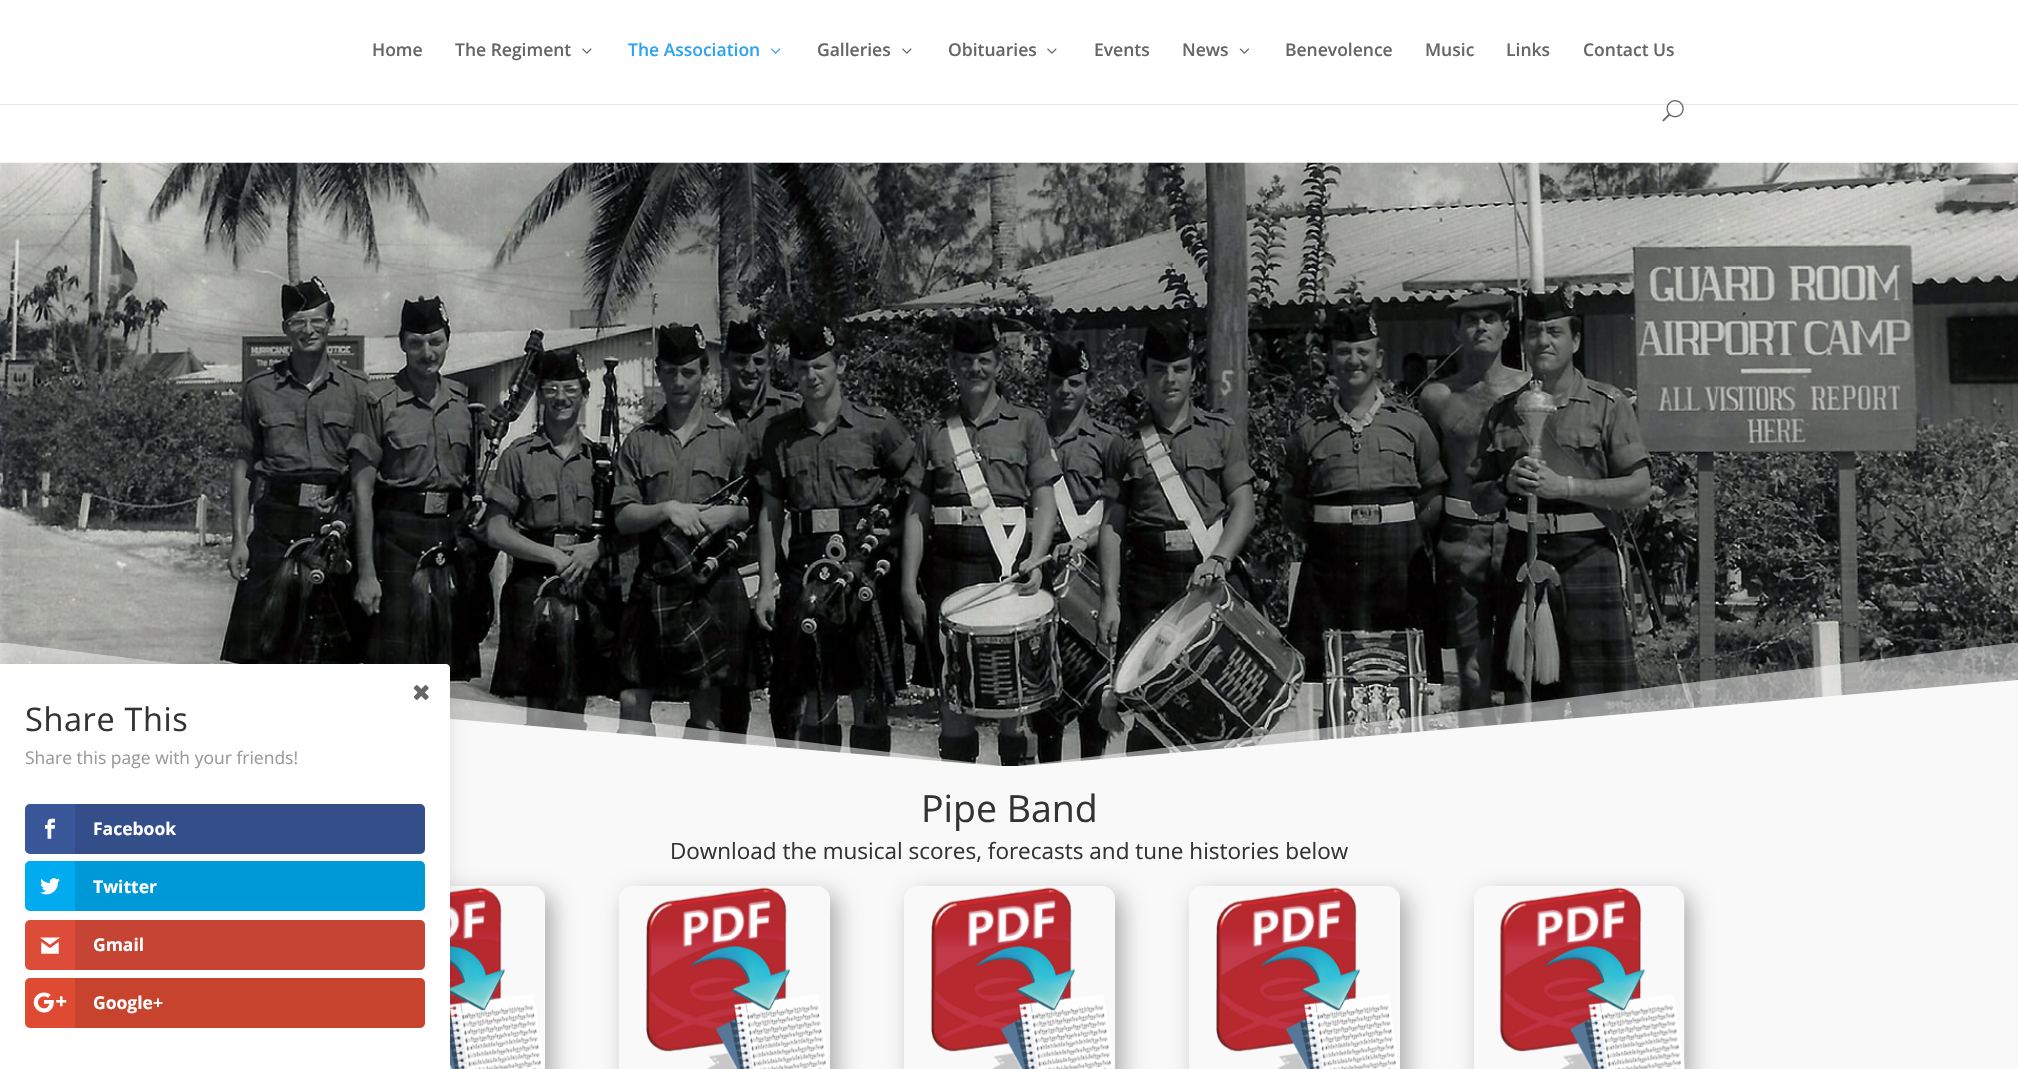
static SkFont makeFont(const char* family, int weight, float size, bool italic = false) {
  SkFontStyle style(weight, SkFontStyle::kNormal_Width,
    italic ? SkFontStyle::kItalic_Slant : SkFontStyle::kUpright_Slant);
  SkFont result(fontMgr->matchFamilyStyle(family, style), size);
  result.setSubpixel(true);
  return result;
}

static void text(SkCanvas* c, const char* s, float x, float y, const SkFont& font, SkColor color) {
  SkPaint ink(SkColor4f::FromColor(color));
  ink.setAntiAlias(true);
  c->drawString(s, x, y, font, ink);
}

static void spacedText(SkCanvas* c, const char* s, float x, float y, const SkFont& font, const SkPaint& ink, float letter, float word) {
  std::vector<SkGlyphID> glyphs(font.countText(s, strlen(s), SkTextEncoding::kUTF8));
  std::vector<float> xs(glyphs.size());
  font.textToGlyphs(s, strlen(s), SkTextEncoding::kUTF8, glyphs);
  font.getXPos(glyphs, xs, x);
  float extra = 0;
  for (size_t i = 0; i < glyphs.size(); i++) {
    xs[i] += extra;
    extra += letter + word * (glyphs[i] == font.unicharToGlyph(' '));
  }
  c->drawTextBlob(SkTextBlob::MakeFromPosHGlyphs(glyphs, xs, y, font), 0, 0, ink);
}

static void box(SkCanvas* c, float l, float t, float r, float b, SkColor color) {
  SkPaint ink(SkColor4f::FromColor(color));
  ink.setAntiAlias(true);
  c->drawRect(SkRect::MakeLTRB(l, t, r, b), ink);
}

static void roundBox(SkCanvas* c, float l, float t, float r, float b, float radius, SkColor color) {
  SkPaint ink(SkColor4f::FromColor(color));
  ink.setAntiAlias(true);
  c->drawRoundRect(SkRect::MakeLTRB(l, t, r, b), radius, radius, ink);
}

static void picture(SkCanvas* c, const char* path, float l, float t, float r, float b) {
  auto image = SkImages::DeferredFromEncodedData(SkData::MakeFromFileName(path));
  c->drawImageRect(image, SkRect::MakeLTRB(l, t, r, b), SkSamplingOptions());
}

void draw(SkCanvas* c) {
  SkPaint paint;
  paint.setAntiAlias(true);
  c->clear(0xffffffff);
  picture(c, "img_10.png", 0, 162, 2018, 766);
  box(c, 450, 766, 2018, 1069, 0xfff9f9f9);
  c->save();
  c->clipRect(SkRect::MakeLTRB(0, 643, 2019, 768));
  paint.setColor(0x80f9f9f9);
  c->drawPath(SkPathBuilder().moveTo(1009, 767).lineTo(0, 642).lineTo(0, 768).lineTo(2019, 768).lineTo(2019, 642).close().detach(), paint);
  c->restore();
  paint.setColor(0xfff9f9f9);
  c->drawPath(SkPathBuilder().moveTo(1009, 767).lineTo(0, 680).lineTo(0, 768).lineTo(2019, 768).lineTo(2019, 680).close().detach(), paint);
  c->save();
  c->clipPath(SkPathBuilder(SkPathFillType::kEvenOdd).moveTo(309, 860).lineTo(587, 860).lineTo(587, 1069).lineTo(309, 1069).close().moveTo(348, 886).lineTo(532, 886).cubicTo(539, 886, 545, 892, 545, 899).lineTo(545, 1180).cubicTo(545, 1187, 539, 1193, 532, 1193).lineTo(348, 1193).cubicTo(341, 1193, 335, 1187, 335, 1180).lineTo(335, 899).cubicTo(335, 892, 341, 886, 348, 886).close().detach(), true);
  paint.setColor(0x4d000000);
  paint.setMaskFilter(SkMaskFilter::MakeBlur(kNormal_SkBlurStyle, 11));
  c->drawRoundRect(SkRect::MakeLTRB(343, 894, 553, 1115), 13, 13, paint);
  paint.setMaskFilter(nullptr);
  c->restore();
  picture(c, "img_11.png", 450, 887, 545, 1069);
  paint.setColor(0x1a000000);
  paint.setMaskFilter(SkMaskFilter::MakeBlur(kNormal_SkBlurStyle, 9.5f));
  c->drawRoundRect(SkRect::MakeLTRB(0, 664, 450, 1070), 4, 4, paint);
  paint.setMaskFilter(nullptr);
  paint.setColor(0xffffffff);
  c->drawPath(SkPathBuilder().moveTo(0, 664).lineTo(446, 664).cubicTo(448, 664, 450, 666, 450, 668).lineTo(450, 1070).lineTo(0, 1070).close().detach(), paint);
  picture(c, "img_01.png", 413, 685, 429, 700);
  SkFont face1 = makeFont("Open Sans", 400, 32.5f);
  paint.setColor(0xff333333);
  spacedText(c, "Share This", 25, 731, face1, paint, 0.6f, 0);
  SkFont face2 = makeFont("Open Sans", 400, 17.5f);
  text(c, "Share this page with your friends!", 25, 764, face2, 0xff999999);
  roundBox(c, 25, 804, 425, 854, 5, 0xff3a579a);
  picture(c, "img_02.png", 45, 818, 55, 839);
  paint.setColor(0x1a000000);
  c->drawPath(SkPathBuilder().moveTo(75, 804).lineTo(420, 804).cubicTo(423, 804, 425, 806, 425, 809).lineTo(425, 849).cubicTo(425, 852, 423, 854, 420, 854).lineTo(75, 854).close().detach(), paint);
  SkFont face3 = makeFont("Open Sans", 700, 17.5f);
  text(c, "Facebook", 93, 835, face3, 0xffffffff);
  roundBox(c, 25, 861, 425, 911, 5, 0xff00abf0);
  picture(c, "img_03.png", 40, 878, 60, 895);
  c->drawPath(SkPathBuilder().moveTo(75, 861).lineTo(420, 861).cubicTo(423, 861, 425, 863, 425, 866).lineTo(425, 906).cubicTo(425, 909, 423, 911, 420, 911).lineTo(75, 911).close().detach(), paint);
  text(c, "Twitter", 93, 893, face3, 0xffffffff);
  roundBox(c, 25, 920, 425, 970, 5, 0xffdd4b39);
  picture(c, "img_04.png", 40, 937, 60, 954);
  c->drawPath(SkPathBuilder().moveTo(75, 920).lineTo(420, 920).cubicTo(423, 920, 425, 922, 425, 925).lineTo(425, 965).cubicTo(425, 968, 423, 970, 420, 970).lineTo(75, 970).close().detach(), paint);
  text(c, "Gmail", 93, 951, face3, 0xffffffff);
  roundBox(c, 25, 978, 425, 1028, 5, 0xffdf4a32);
  picture(c, "img_05.png", 33, 992, 67, 1013);
  c->drawPath(SkPathBuilder().moveTo(75, 978).lineTo(420, 978).cubicTo(423, 978, 425, 980, 425, 983).lineTo(425, 1023).cubicTo(425, 1026, 423, 1028, 420, 1028).lineTo(75, 1028).close().detach(), paint);
  text(c, "Google+", 93, 1009, face3, 0xffffffff);
  paint.setColor(0xffe6e6e6);
  c->drawPath(SkPathBuilder().moveTo(0, 104).lineTo(0, 105).lineTo(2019, 105).lineTo(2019, 1).lineTo(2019, 104).close().detach(), paint);
  SkFont face4 = makeFont("Open Sans", 600, 17.5f);
  text(c, "Home", 372, 56, face4, 0xff666666);
  text(c, "The Regiment", 455, 56, face4, 0xff666666);
  picture(c, "img_06.png", 582, 48, 592, 54);
  text(c, "The Association", 628, 56, face4, 0xff2ea3f2);
  picture(c, "img_07.png", 771, 48, 781, 54);
  text(c, "Galleries", 817, 56, face4, 0xff666666);
  picture(c, "img_06.png", 902, 48, 912, 54);
  text(c, "Obituaries", 948, 56, face4, 0xff666666);
  picture(c, "img_06.png", 1047, 48, 1057, 54);
  text(c, "Events", 1094, 56, face4, 0xff666666);
  text(c, "News", 1182, 56, face4, 0xff666666);
  picture(c, "img_08.png", 1239, 48, 1249, 54);
  text(c, "Benevolence", 1285, 56, face4, 0xff666666);
  text(c, "Music", 1425, 56, face4, 0xff666666);
  text(c, "Links", 1506, 56, face4, 0xff666666);
  text(c, "Contact Us", 1583, 56, face4, 0xff666666);
  picture(c, "img_09.png", 1662, 100, 1684, 122);
  SkFont face5 = makeFont("Open Sans", 400, 37.5f);
  text(c, "Pipe Band", 921, 822, face5, 0xff333333);
  c->save();
  c->clipPath(SkPathBuilder(SkPathFillType::kEvenOdd).moveTo(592, 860).lineTo(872, 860).lineTo(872, 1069).lineTo(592, 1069).close().moveTo(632, 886).lineTo(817, 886).cubicTo(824, 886, 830, 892, 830, 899).lineTo(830, 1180).cubicTo(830, 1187, 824, 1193, 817, 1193).lineTo(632, 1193).cubicTo(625, 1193, 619, 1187, 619, 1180).lineTo(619, 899).cubicTo(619, 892, 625, 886, 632, 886).close().detach(), true);
  paint.setColor(0x4d000000);
  paint.setMaskFilter(SkMaskFilter::MakeBlur(kNormal_SkBlurStyle, 11));
  c->drawRoundRect(SkRect::MakeLTRB(626, 894, 838, 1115), 13, 13, paint);
  paint.setMaskFilter(nullptr);
  c->restore();
  c->save();
  c->clipPath(SkPathBuilder(SkPathFillType::kEvenOdd).moveTo(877, 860).lineTo(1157, 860).lineTo(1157, 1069).lineTo(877, 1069).close().moveTo(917, 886).lineTo(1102, 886).cubicTo(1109, 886, 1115, 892, 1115, 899).lineTo(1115, 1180).cubicTo(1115, 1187, 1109, 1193, 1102, 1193).lineTo(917, 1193).cubicTo(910, 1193, 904, 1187, 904, 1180).lineTo(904, 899).cubicTo(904, 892, 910, 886, 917, 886).close().detach(), true);
  paint.setMaskFilter(SkMaskFilter::MakeBlur(kNormal_SkBlurStyle, 11));
  c->drawRoundRect(SkRect::MakeLTRB(911, 894, 1123, 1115), 13, 13, paint);
  paint.setMaskFilter(nullptr);
  c->restore();
  c->save();
  c->clipPath(SkPathBuilder(SkPathFillType::kEvenOdd).moveTo(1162, 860).lineTo(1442, 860).lineTo(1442, 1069).lineTo(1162, 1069).close().moveTo(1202, 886).lineTo(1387, 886).cubicTo(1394, 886, 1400, 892, 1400, 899).lineTo(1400, 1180).cubicTo(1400, 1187, 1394, 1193, 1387, 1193).lineTo(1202, 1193).cubicTo(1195, 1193, 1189, 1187, 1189, 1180).lineTo(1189, 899).cubicTo(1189, 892, 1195, 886, 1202, 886).close().detach(), true);
  paint.setMaskFilter(SkMaskFilter::MakeBlur(kNormal_SkBlurStyle, 11));
  c->drawRoundRect(SkRect::MakeLTRB(1196, 894, 1408, 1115), 13, 13, paint);
  paint.setMaskFilter(nullptr);
  c->restore();
  SkFont face6 = makeFont("Open Sans", 400, 22.5f);
  text(c, "Download the musical scores, forecasts and tune histories below", 670, 859, face6, 0xff333333);
  picture(c, "img_12.png", 646, 887, 830, 1069);
  picture(c, "img_12.png", 931, 887, 1115, 1069);
  picture(c, "img_13.png", 1216, 887, 1400, 1069);
  c->save();
  c->clipPath(SkPathBuilder(SkPathFillType::kEvenOdd).moveTo(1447, 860).lineTo(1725, 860).lineTo(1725, 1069).lineTo(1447, 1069).close().moveTo(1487, 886).lineTo(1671, 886).cubicTo(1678, 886, 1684, 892, 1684, 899).lineTo(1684, 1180).cubicTo(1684, 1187, 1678, 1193, 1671, 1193).lineTo(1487, 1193).cubicTo(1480, 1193, 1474, 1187, 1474, 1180).lineTo(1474, 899).cubicTo(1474, 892, 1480, 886, 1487, 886).close().detach(), true);
  paint.setMaskFilter(SkMaskFilter::MakeBlur(kNormal_SkBlurStyle, 11));
  c->drawRoundRect(SkRect::MakeLTRB(1481, 894, 1691, 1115), 13, 13, paint);
  paint.setMaskFilter(nullptr);
  c->restore();
  picture(c, "img_14.png", 1499, 887, 1685, 1069);
}
